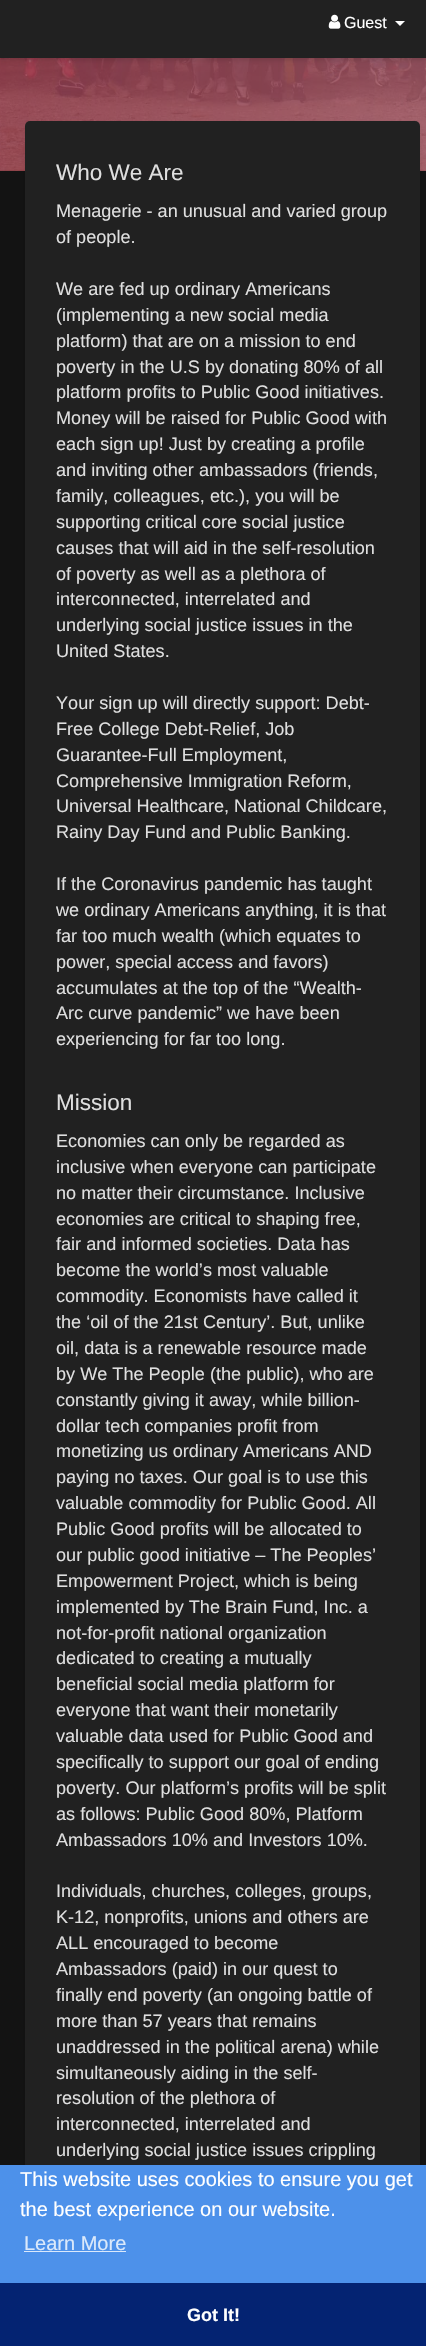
static SkFont makeFont(const char* family, int weight, float size, bool italic = false) {
  SkFontStyle style(weight, SkFontStyle::kNormal_Width,
    italic ? SkFontStyle::kItalic_Slant : SkFontStyle::kUpright_Slant);
  SkFont result(fontMgr->matchFamilyStyle(family, style), size);
  result.setSubpixel(true);
  return result;
}

static void text(SkCanvas* c, const char* s, float x, float y, const SkFont& font, SkColor color) {
  SkPaint ink(SkColor4f::FromColor(color));
  ink.setAntiAlias(true);
  c->drawString(s, x, y, font, ink);
}

static void box(SkCanvas* c, float l, float t, float r, float b, SkColor color) {
  SkPaint ink(SkColor4f::FromColor(color));
  ink.setAntiAlias(true);
  c->drawRect(SkRect::MakeLTRB(l, t, r, b), ink);
}

static void roundBox(SkCanvas* c, float l, float t, float r, float b, float radius, SkColor color) {
  SkPaint ink(SkColor4f::FromColor(color));
  ink.setAntiAlias(true);
  c->drawRoundRect(SkRect::MakeLTRB(l, t, r, b), radius, radius, ink);
}

static void picture(SkCanvas* c, const char* path, float l, float t, float r, float b) {
  auto image = SkImages::DeferredFromEncodedData(SkData::MakeFromFileName(path));
  c->drawImageRect(image, SkRect::MakeLTRB(l, t, r, b), SkSamplingOptions());
}

void draw(SkCanvas* c) {
  SkPaint paint;
  paint.setAntiAlias(true);
  c->clear(0xff131313);
  picture(c, "img_02.png", 0, 58, 426, 171);
  {
    const SkColor colors[] = {0x99b53c3f, 0x99ca6162};
    const float stops[] = {0, 1};
    const SkPoint ends[] = {{0, -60}, {426, -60}};
    paint.setShader(SkGradientShader::MakeLinear(ends, colors, stops, 2, SkTileMode::kClamp));
    paint.setAlpha(255);
  }
  c->drawRect(SkRect::MakeLTRB(0, 58, 426, 171), paint);
  paint.setShader(nullptr);
  paint.setColor(0x26000000);
  paint.setMaskFilter(SkMaskFilter::MakeBlur(kNormal_SkBlurStyle, 2.5f));
  c->drawRect(SkRect::MakeLTRB(0, 3, 426, 60), paint);
  paint.setMaskFilter(nullptr);
  box(c, 0, 0, 426, 58, 0xff212121);
  picture(c, "img_01.png", 328, 14, 341, 29);
  SkFont face1 = makeFont("Liberation Sans", 400, 16);
  text(c, "Guest", 344, 28, face1, 0xffffffff);
  paint.setColor(0xffffffff);
  c->drawPath(SkPathBuilder().moveTo(395, 21).lineTo(405, 21).lineTo(400, 26).close().detach(), paint);
  paint.setColor(0x1a000000);
  paint.setMaskFilter(SkMaskFilter::MakeBlur(kNormal_SkBlurStyle, 2));
  c->drawRoundRect(SkRect::MakeLTRB(25, 123, 420, 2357), 5, 5, paint);
  paint.setMaskFilter(nullptr);
  roundBox(c, 25, 121, 420, 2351, 5, 0xff212121);
  SkFont face2 = makeFont("Liberation Sans", 400, 22.5f);
  text(c, "Who We Are", 56, 180, face2, 0xffdfdfdf);
  SkFont face3 = makeFont("Liberation Sans", 400, 18.1f);
  text(c, "Menagerie - an unusual and varied group", 56, 217, face3, 0xffdfdfdf);
  text(c, "of people.", 56, 243, face3, 0xffdfdfdf);
  text(c, "We are fed up ordinary Americans", 56, 295, face3, 0xffdfdfdf);
  text(c, "(implementing a new social media", 56, 321, face3, 0xffdfdfdf);
  text(c, "platform) that are on a mission to end", 56, 347, face3, 0xffdfdfdf);
  text(c, "poverty in the U.S by donating 80% of all", 56, 373, face3, 0xffdfdfdf);
  text(c, "platform profits to Public Good initiatives.", 56, 398, face3, 0xffdfdfdf);
  text(c, "Money will be raised for Public Good with", 56, 424, face3, 0xffdfdfdf);
  text(c, "each sign up! Just by creating a profile", 56, 450, face3, 0xffdfdfdf);
  text(c, "and inviting other ambassadors (friends,", 56, 476, face3, 0xffdfdfdf);
  text(c, "family, colleagues, etc.), you will be", 56, 502, face3, 0xffdfdfdf);
  text(c, "supporting critical core social justice", 56, 528, face3, 0xffdfdfdf);
  text(c, "causes that will aid in the self-resolution", 56, 554, face3, 0xffdfdfdf);
  text(c, "of poverty as well as a plethora of", 56, 580, face3, 0xffdfdfdf);
  text(c, "interconnected, interrelated and", 56, 605, face3, 0xffdfdfdf);
  text(c, "underlying social justice issues in the", 56, 631, face3, 0xffdfdfdf);
  text(c, "United States.", 56, 657, face3, 0xffdfdfdf);
  text(c, "Your sign up will directly support: Debt-", 56, 709, face3, 0xffdfdfdf);
  text(c, "Free College Debt-Relief, Job", 56, 735, face3, 0xffdfdfdf);
  text(c, "Guarantee-Full Employment,", 56, 761, face3, 0xffdfdfdf);
  text(c, "Comprehensive Immigration Reform,", 56, 787, face3, 0xffdfdfdf);
  text(c, "Universal Healthcare, National Childcare,", 56, 812, face3, 0xffdfdfdf);
  text(c, "Rainy Day Fund and Public Banking.", 56, 838, face3, 0xffdfdfdf);
  text(c, "If the Coronavirus pandemic has taught", 56, 890, face3, 0xffdfdfdf);
  text(c, "we ordinary Americans anything, it is that", 56, 916, face3, 0xffdfdfdf);
  text(c, "far too much wealth (which equates to", 56, 942, face3, 0xffdfdfdf);
  text(c, "power, special access and favors)", 56, 968, face3, 0xffdfdfdf);
  text(c, "accumulates at the top of the “Wealth-", 56, 994, face3, 0xffdfdfdf);
  text(c, "Arc curve pandemic” we have been", 56, 1019, face3, 0xffdfdfdf);
  text(c, "experiencing for far too long.", 56, 1045, face3, 0xffdfdfdf);
  text(c, "Mission", 56, 1110, face2, 0xffdfdfdf);
  text(c, "Economies can only be regarded as", 56, 1147, face3, 0xffdfdfdf);
  text(c, "inclusive when everyone can participate", 56, 1173, face3, 0xffdfdfdf);
  text(c, "no matter their circumstance. Inclusive", 56, 1199, face3, 0xffdfdfdf);
  text(c, "economies are critical to shaping free,", 56, 1225, face3, 0xffdfdfdf);
  text(c, "fair and informed societies. Data has", 56, 1250, face3, 0xffdfdfdf);
  text(c, "become the world’s most valuable", 56, 1276, face3, 0xffdfdfdf);
  text(c, "commodity. Economists have called it", 56, 1302, face3, 0xffdfdfdf);
  text(c, "the ‘oil of the 21st Century’. But, unlike", 56, 1328, face3, 0xffdfdfdf);
  text(c, "oil, data is a renewable resource made", 56, 1354, face3, 0xffdfdfdf);
  text(c, "by We The People (the public), who are", 56, 1380, face3, 0xffdfdfdf);
  text(c, "constantly giving it away, while billion-", 56, 1406, face3, 0xffdfdfdf);
  text(c, "dollar tech companies profit from", 56, 1432, face3, 0xffdfdfdf);
  text(c, "monetizing us ordinary Americans AND", 56, 1457, face3, 0xffdfdfdf);
  text(c, "paying no taxes. Our goal is to use this", 56, 1483, face3, 0xffdfdfdf);
  text(c, "valuable commodity for Public Good. All", 56, 1509, face3, 0xffdfdfdf);
  text(c, "Public Good profits will be allocated to", 56, 1535, face3, 0xffdfdfdf);
  text(c, "our public good initiative – The Peoples’", 56, 1561, face3, 0xffdfdfdf);
  text(c, "Empowerment Project, which is being", 56, 1587, face3, 0xffdfdfdf);
  text(c, "implemented by The Brain Fund, Inc. a", 56, 1613, face3, 0xffdfdfdf);
  text(c, "not-for-profit national organization", 56, 1639, face3, 0xffdfdfdf);
  text(c, "dedicated to creating a mutually", 56, 1664, face3, 0xffdfdfdf);
  text(c, "beneficial social media platform for", 56, 1690, face3, 0xffdfdfdf);
  text(c, "everyone that want their monetarily", 56, 1716, face3, 0xffdfdfdf);
  text(c, "valuable data used for Public Good and", 56, 1742, face3, 0xffdfdfdf);
  text(c, "specifically to support our goal of ending", 56, 1768, face3, 0xffdfdfdf);
  text(c, "poverty. Our platform’s profits will be split", 56, 1794, face3, 0xffdfdfdf);
  text(c, "as follows: Public Good 80%, Platform", 56, 1820, face3, 0xffdfdfdf);
  text(c, "Ambassadors 10% and Investors 10%.", 56, 1846, face3, 0xffdfdfdf);
  text(c, "Individuals, churches, colleges, groups,", 56, 1897, face3, 0xffdfdfdf);
  text(c, "K-12, nonprofits, unions and others are", 56, 1923, face3, 0xffdfdfdf);
  text(c, "ALL encouraged to become", 56, 1949, face3, 0xffdfdfdf);
  text(c, "Ambassadors (paid) in our quest to", 56, 1975, face3, 0xffdfdfdf);
  text(c, "finally end poverty (an ongoing battle of", 56, 2001, face3, 0xffdfdfdf);
  text(c, "more than 57 years that remains", 56, 2027, face3, 0xffdfdfdf);
  text(c, "unaddressed in the political arena) while", 56, 2053, face3, 0xffdfdfdf);
  text(c, "simultaneously aiding in the self-", 56, 2079, face3, 0xffdfdfdf);
  text(c, "resolution of the plethora of", 56, 2104, face3, 0xffdfdfdf);
  text(c, "interconnected, interrelated and", 56, 2130, face3, 0xffdfdfdf);
  text(c, "underlying social justice issues crippling", 56, 2156, face3, 0xffdfdfdf);
  box(c, 0, 2165, 426, 2283, 0xff4d91ea);
  SkFont face4 = makeFont("Liberation Sans", 400, 20);
  text(c, "This website uses cookies to ensure you get", 20, 2186, face4, 0xffffffff);
  text(c, "the best experience on our website.", 20, 2216, face4, 0xffffffff);
  text(c, "Learn More", 24, 2250, face4, 0xffdbe9fb);
  box(c, 24, 2251, 126, 2252, 0xffdbe9fb);
  box(c, 0, 2283, 426, 2346, 0xff042372);
  SkFont face5 = makeFont("Liberation Sans", 700, 18);
  text(c, "Got It!", 187, 2321, face5, 0xffffffff);
}
